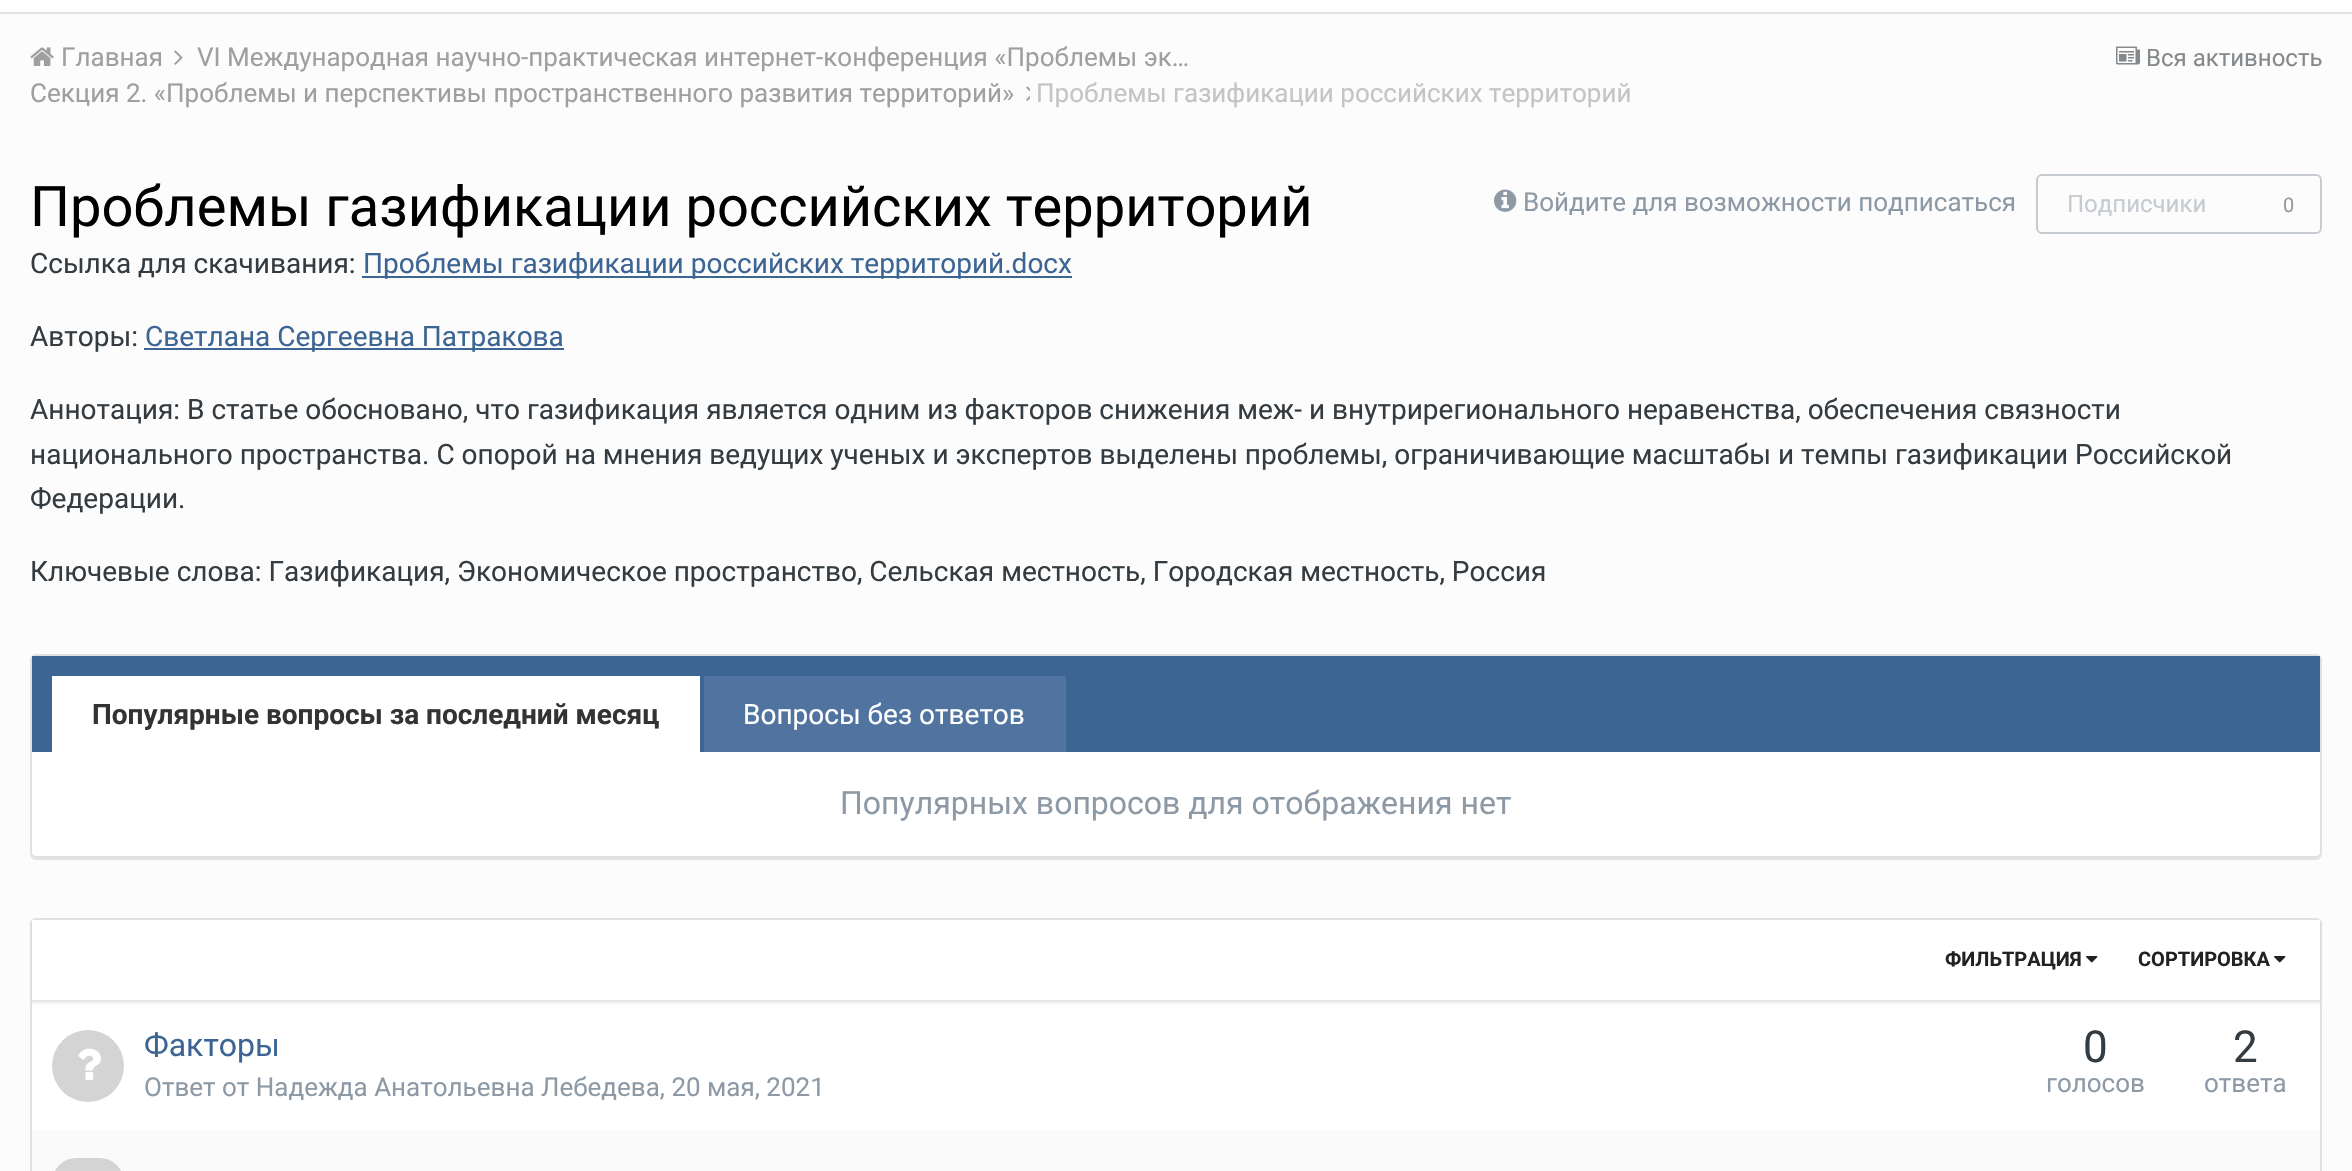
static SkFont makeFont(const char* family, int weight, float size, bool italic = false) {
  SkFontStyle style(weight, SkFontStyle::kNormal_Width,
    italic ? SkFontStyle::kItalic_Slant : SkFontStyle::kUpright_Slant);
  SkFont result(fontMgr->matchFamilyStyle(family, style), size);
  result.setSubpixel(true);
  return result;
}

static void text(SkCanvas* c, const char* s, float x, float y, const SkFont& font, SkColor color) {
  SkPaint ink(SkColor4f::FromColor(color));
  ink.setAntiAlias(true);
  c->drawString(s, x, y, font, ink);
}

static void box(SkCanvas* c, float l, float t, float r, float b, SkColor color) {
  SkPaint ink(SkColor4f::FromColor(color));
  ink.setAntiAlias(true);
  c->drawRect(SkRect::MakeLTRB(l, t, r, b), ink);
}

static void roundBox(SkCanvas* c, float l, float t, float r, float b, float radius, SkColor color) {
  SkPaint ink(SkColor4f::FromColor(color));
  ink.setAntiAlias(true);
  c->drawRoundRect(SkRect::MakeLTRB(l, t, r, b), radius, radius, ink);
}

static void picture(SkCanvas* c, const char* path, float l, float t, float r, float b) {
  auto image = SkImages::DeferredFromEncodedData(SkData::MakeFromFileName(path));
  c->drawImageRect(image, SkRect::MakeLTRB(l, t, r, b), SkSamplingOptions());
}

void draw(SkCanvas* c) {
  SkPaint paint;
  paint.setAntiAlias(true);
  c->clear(0xfffcfcfc);
  box(c, 0, 12, 2352, 14, 0xffe3e3e3);
  box(c, 0, 0, 2352, 12, 0xffffffff);
  picture(c, "img_01.png", 30, 47, 54, 66);
  SkFont face1 = makeFont("Roboto", 400, 26);
  text(c, "Главная", 61, 66, face1, 0xff9f9f9f);
  picture(c, "img_02.png", 174, 50, 183, 65);
  text(c, "VI Международная научно-практическая интернет-конференция «Проблемы эк…", 197, 66, face1, 0xff9f9f9f);
  text(c, "Секция 2. «Проблемы и перспективы пространственного развития территорий»", 30, 102, face1, 0xff9f9f9f);
  picture(c, "img_03.png", 1026, 86, 1030, 101);
  text(c, "Проблемы газификации российских территорий", 1036, 102, face1, 0xffc4c4c4);
  picture(c, "img_04.png", 2116, 46, 2140, 65);
  SkFont face2 = makeFont("Roboto", 400, 24);
  text(c, "Вся активность", 2146, 66, face2, 0xff85898c);
  SkFont face3 = makeFont("Roboto", 400, 56);
  text(c, "Проблемы газификации российских территорий", 30, 226, face3, 0xff000000);
  picture(c, "img_05.png", 1494, 189, 1517, 212);
  text(c, "Войдите для возможности подписаться", 1523, 211, face1, 0xff8d9aa6);
  paint.setStyle(SkPaint::kStroke_Style);
  paint.setStrokeWidth(2);
  paint.setColor(0xffc5cbd1);
  c->drawRoundRect(SkRect::MakeLTRB(2037, 175, 2321, 233), 5, 5, paint);
  text(c, "Подписчики", 2067, 212, face2, 0xffc5cbd1);
  SkFont face4 = makeFont("Roboto", 400, 20);
  text(c, "0", 2283, 212, face4, 0xff989898);
  SkFont face5 = makeFont("Roboto", 400, 28);
  text(c, "Ссылка для скачивания:", 30, 273, face5, 0xff353c41);
  box(c, 362, 276, 1072, 278, 0xff3d6594);
  text(c, "Проблемы газификации российских территорий.docx", 363, 273, face5, 0xff3d6594);
  text(c, "Авторы:", 30, 346, face5, 0xff353c41);
  box(c, 144, 348, 564, 350, 0xff3d6594);
  text(c, "Светлана Сергеевна Патракова", 145, 346, face5, 0xff3d6594);
  text(c, "Аннотация: В статье обосновано, что газификация является одним из факторов снижения меж- и внутрирегионального неравенства, обеспечения связности", 30, 419, face5, 0xff353c41);
  text(c, "национального пространства. С опорой на мнения ведущих ученых и экспертов выделены проблемы, ограничивающие масштабы и темпы газификации Российской", 30, 464, face5, 0xff353c41);
  text(c, "Федерации.", 30, 508, face5, 0xff353c41);
  text(c, "Ключевые слова: Газификация, Экономическое пространство, Сельская местность, Городская местность, Россия", 30, 581, face5, 0xff353c41);
  paint.setStyle(SkPaint::kFill_Style);
  paint.setColor(0xffe3e3e3);
  c->drawPath(SkPathBuilder().moveTo(30, 852).lineTo(30, 854).cubicTo(30, 857, 33, 860, 36, 860).lineTo(2316, 860).cubicTo(2319, 860, 2322, 857, 2322, 854).lineTo(2322, 852).cubicTo(2322, 855, 2319, 858, 2316, 858).lineTo(36, 858).cubicTo(33, 858, 30, 855, 30, 852).close().detach(), paint);
  paint.setColor(0xffffffff);
  c->drawRoundRect(SkRect::MakeLTRB(31, 655, 2321, 857), 5, 5, paint);
  paint.setStyle(SkPaint::kStroke_Style);
  paint.setColor(0xffe0e0e0);
  c->drawRoundRect(SkRect::MakeLTRB(31, 655, 2321, 857), 5, 5, paint);
  box(c, 32, 656, 2320, 752, 0xff3d6594);
  box(c, 52, 676, 700, 752, 0xffffffff);
  SkFont face6 = makeFont("Roboto", 700, 28);
  text(c, "Популярные вопросы за последний месяц", 92, 724, face6, 0xff333333);
  box(c, 704, 676, 1066, 752, 0xff50749f);
  text(c, "Вопросы без ответов", 743, 724, face5, 0xffffffff);
  SkFont face7 = makeFont("Roboto", 400, 32);
  text(c, "Популярных вопросов для отображения нет", 840, 814, face7, 0xff8d9aa6);
  paint.setStyle(SkPaint::kFill_Style);
  paint.setColor(0xffffffff);
  c->drawRoundRect(SkRect::MakeLTRB(31, 919, 2321, 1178), 5, 5, paint);
  paint.setStyle(SkPaint::kStroke_Style);
  paint.setColor(0xffe0e0e0);
  c->drawRoundRect(SkRect::MakeLTRB(31, 919, 2321, 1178), 5, 5, paint);
  paint.setStyle(SkPaint::kFill_Style);
  paint.setColor(0x0d000000);
  paint.setMaskFilter(SkMaskFilter::MakeBlur(kNormal_SkBlurStyle, 1));
  c->drawRect(SkRect::MakeLTRB(32, 922, 2320, 1004), paint);
  paint.setMaskFilter(nullptr);
  box(c, 32, 920, 2320, 1000, 0xffffffff);
  box(c, 32, 1000, 2320, 1002, 0xffe6e6e6);
  SkFont face8 = makeFont("Roboto", 700, 20);
  text(c, "ФИЛЬТРАЦИЯ", 1945, 966, face8, 0xff222222);
  picture(c, "img_06.png", 2086, 956, 2098, 963);
  text(c, "СОРТИРОВКА", 2138, 966, face8, 0xff222222);
  picture(c, "img_06.png", 2274, 956, 2286, 963);
  paint.setColor(0xffd4d4d4);
  c->drawCircle(88, 1066, 36, paint);
  picture(c, "img_07.png", 78, 1048, 101, 1080);
  text(c, "Факторы", 144, 1056, face7, 0xff3d6594);
  text(c, "Ответ от Надежда Анатольевна Лебедева, 20 мая, 2021", 144, 1096, face1, 0xff8d9aa6);
  SkFont face9 = makeFont("Roboto", 400, 44);
  text(c, "0", 2083, 1062, face9, 0xff353c41);
  text(c, "голосов", 2046, 1092, face1, 0xff8d9aa6);
  text(c, "2", 2233, 1062, face9, 0xff353c41);
  text(c, "ответа", 2204, 1092, face1, 0xff8d9aa6);
  box(c, 32, 1130, 2320, 1171, 0xfffafafa);
  roundBox(c, 52, 1158, 124, 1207, 36, 0xffd4d4d4);
}
